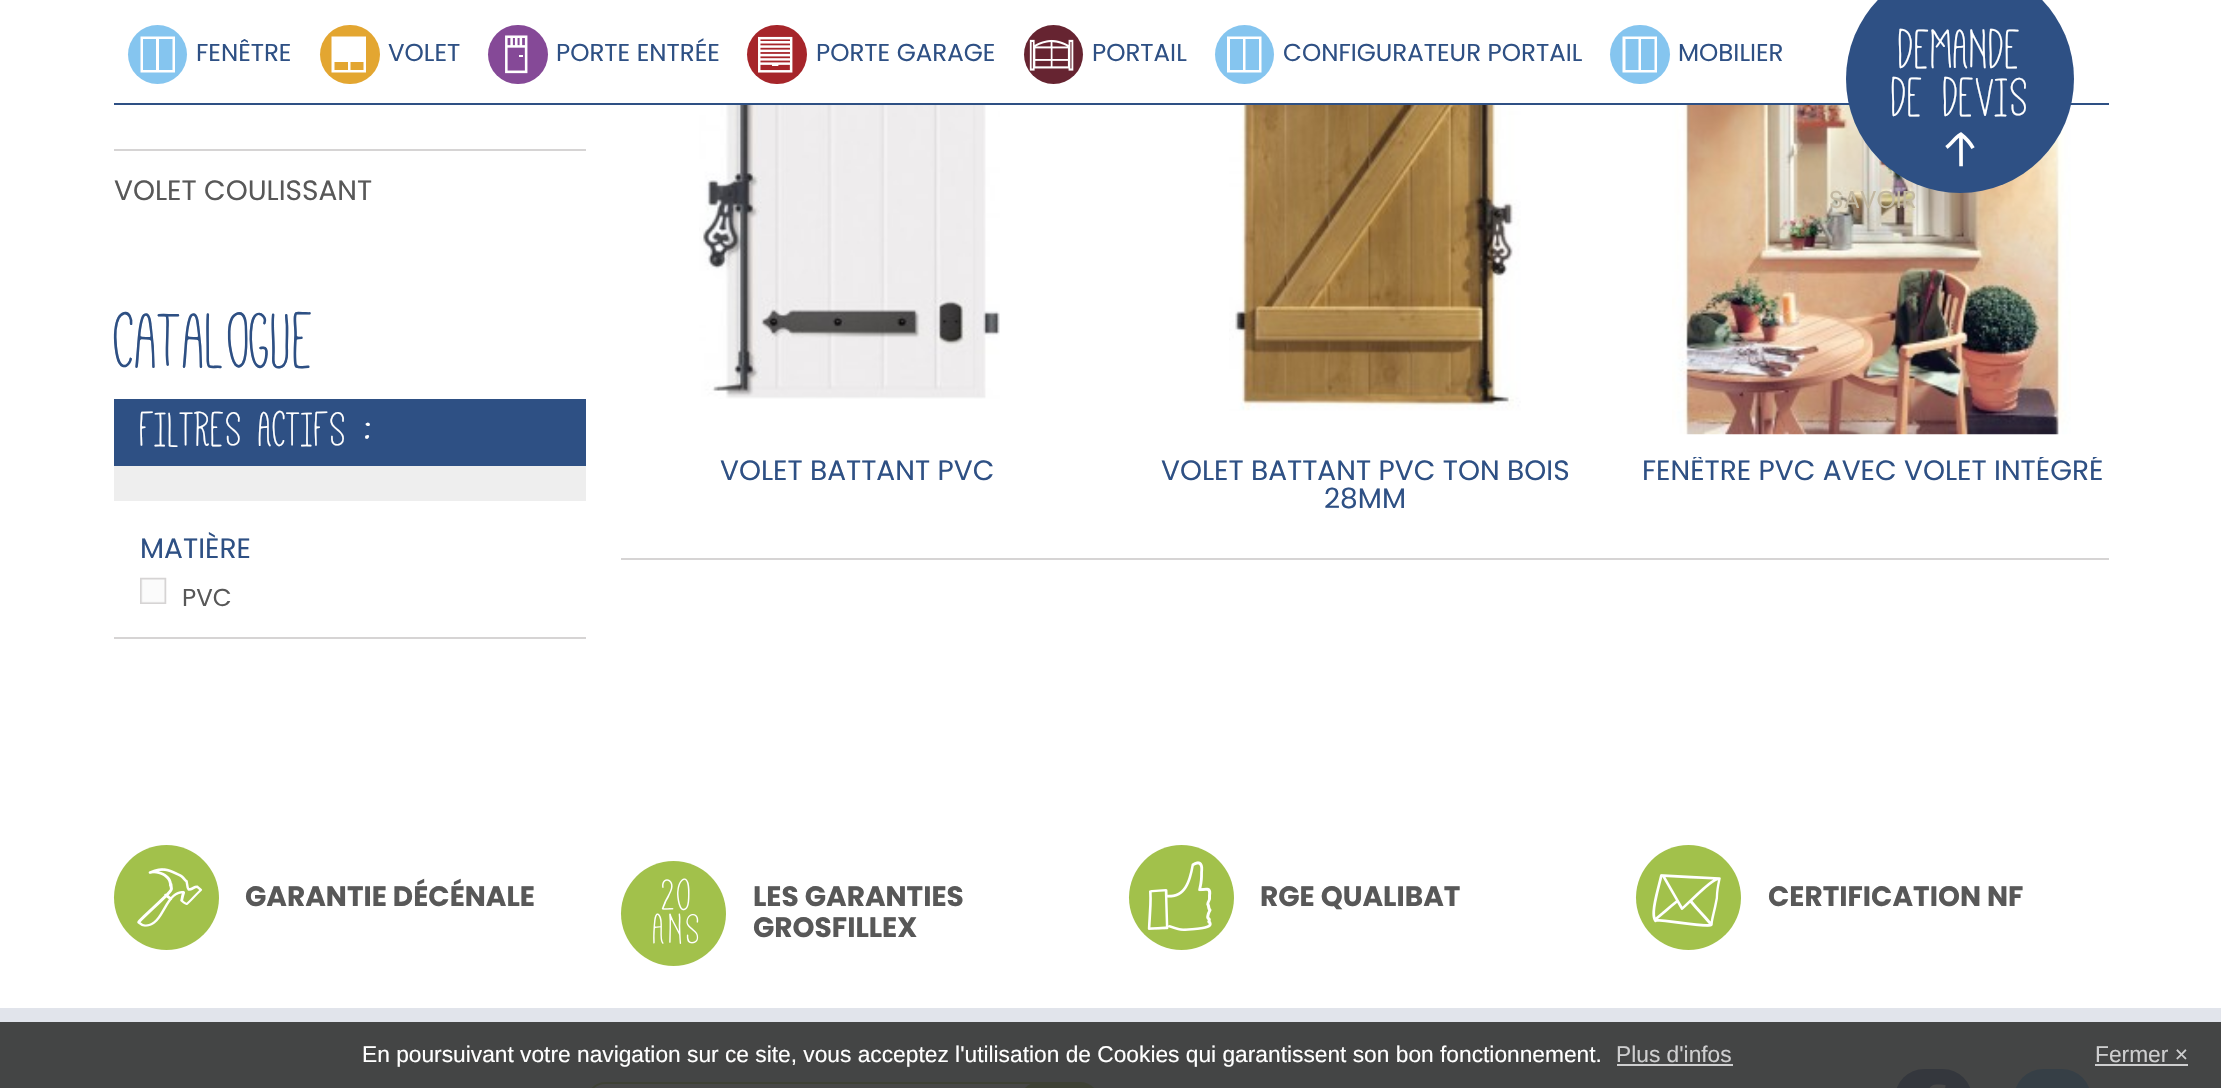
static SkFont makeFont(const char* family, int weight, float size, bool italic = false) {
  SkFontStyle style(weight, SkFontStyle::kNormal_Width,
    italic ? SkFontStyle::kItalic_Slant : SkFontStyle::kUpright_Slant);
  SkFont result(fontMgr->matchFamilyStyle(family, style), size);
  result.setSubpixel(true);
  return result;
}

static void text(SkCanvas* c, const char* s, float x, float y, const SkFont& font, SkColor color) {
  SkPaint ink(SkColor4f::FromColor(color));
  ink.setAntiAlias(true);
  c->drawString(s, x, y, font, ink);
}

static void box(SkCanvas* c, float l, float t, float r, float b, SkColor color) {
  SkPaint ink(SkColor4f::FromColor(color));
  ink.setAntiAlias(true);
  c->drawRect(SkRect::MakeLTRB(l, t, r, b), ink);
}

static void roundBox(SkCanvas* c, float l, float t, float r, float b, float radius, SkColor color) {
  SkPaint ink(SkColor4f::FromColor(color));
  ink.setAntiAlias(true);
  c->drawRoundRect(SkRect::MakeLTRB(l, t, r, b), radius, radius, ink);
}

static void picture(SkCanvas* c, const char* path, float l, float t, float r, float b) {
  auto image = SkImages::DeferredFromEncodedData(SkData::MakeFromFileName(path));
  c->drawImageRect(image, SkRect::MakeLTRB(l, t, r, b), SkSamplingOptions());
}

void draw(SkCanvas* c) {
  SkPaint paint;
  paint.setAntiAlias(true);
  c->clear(0xffffffff);
  box(c, 114, 103, 2109, 105, 0xff2e5084);
  paint.setColor(0xff85c5ef);
  c->drawCircle(157.5f, 54.5f, 29.5f, paint);
  paint.setColor(0xffffffff);
  c->drawPath(SkPathBuilder().moveTo(140.5f, 36.5f).lineTo(140.5f, 72.5f).lineTo(175, 72.5f).lineTo(175, 36.5f).close().moveTo(156, 70).lineTo(143, 70).lineTo(143, 39).lineTo(156, 39).close().moveTo(172.5f, 70).lineTo(159, 70).lineTo(159, 39).lineTo(172.5f, 39).close().detach(), paint);
  SkFont face1 = makeFont("Poppins", 400, 24.5f);
  text(c, "FENÊTRE", 196, 61, face1, 0xff2e5084);
  roundBox(c, 320, 25, 380, 84, 29.5f, 0xffe3a631);
  c->drawPath(SkPathBuilder().moveTo(331.5f, 36.5f).lineTo(331.5f, 72.5f).lineTo(366, 72.5f).lineTo(366, 36.5f).close().moveTo(348, 70).lineTo(334.5f, 70).lineTo(334.5f, 62).lineTo(348, 62).close().moveTo(363.5f, 70).lineTo(350.5f, 70).lineTo(350.5f, 62).lineTo(363.5f, 62).close().detach(), paint);
  text(c, "VOLET", 388, 61, face1, 0xff2e5084);
  roundBox(c, 488, 25, 548, 84, 29.5f, 0xff854997);
  picture(c, "img_01.png", 505, 35, 528, 74);
  text(c, "PORTE ENTRÉE", 556, 61, face1, 0xff2e5084);
  roundBox(c, 747, 25, 807, 84, 29.5f, 0xffa6252a);
  picture(c, "img_02.png", 758, 36, 793, 73);
  text(c, "PORTE GARAGE", 816, 61, face1, 0xff2e5084);
  paint.setColor(0xff662431);
  c->drawCircle(1053.5f, 54.5f, 29.5f, paint);
  picture(c, "img_03.png", 1029, 39, 1074, 71);
  text(c, "PORTAIL", 1092, 61, face1, 0xff2e5084);
  paint.setColor(0xff85c5ef);
  c->drawCircle(1244.5f, 54.5f, 29.5f, paint);
  paint.setColor(0xffffffff);
  c->drawPath(SkPathBuilder().moveTo(1227, 36.5f).lineTo(1227, 72.5f).lineTo(1261.5f, 72.5f).lineTo(1261.5f, 36.5f).close().moveTo(1243, 70).lineTo(1230, 70).lineTo(1230, 39).lineTo(1243, 39).close().moveTo(1259, 70).lineTo(1245.5f, 70).lineTo(1245.5f, 39).lineTo(1259, 39).close().detach(), paint);
  text(c, "CONFIGURATEUR PORTAIL", 1283, 61, face1, 0xff2e5084);
  roundBox(c, 1610, 25, 1670, 84, 29.5f, 0xff85c5ef);
  c->drawPath(SkPathBuilder().moveTo(1622.5f, 36.5f).lineTo(1622.5f, 72.5f).lineTo(1657, 72.5f).lineTo(1657, 36.5f).close().moveTo(1638.5f, 70).lineTo(1625.5f, 70).lineTo(1625.5f, 39).lineTo(1638.5f, 39).close().moveTo(1654.5f, 70).lineTo(1641, 70).lineTo(1641, 39).lineTo(1654.5f, 39).close().detach(), paint);
  text(c, "MOBILIER", 1678, 61, face1, 0xff2e5084);
  picture(c, "img_08.png", 1672, 105, 2071, 435);
  text(c, "SAVOIR", 1829, 208, face1, 0xffc2b8a2);
  paint.setColor(0xff2e5084);
  c->drawCircle(1960, 79, 114, paint);
  SkFont face2 = makeFont("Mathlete", 300, 63);
  text(c, "DEMANDE", 1898, 68, face2, 0xffffffff);
  text(c, "DE DEVIS", 1891, 116, face2, 0xffffffff);
  picture(c, "img_04.png", 1945, 132, 1975, 167);
  box(c, 114, 149, 586, 151, 0xffd6d4d4);
  SkFont face3 = makeFont("Poppins", 400, 28);
  text(c, "VOLET COULISSANT", 114, 200, face3, 0xff585858);
  SkFont face4 = makeFont("Mathlete", 300, 87.5f);
  text(c, "Catalogue", 114, 367, face4, 0xff2e5084);
  box(c, 114, 466, 586, 501, 0xffeeeeee);
  box(c, 114, 399, 586, 466, 0xff2e5084);
  SkFont face5 = makeFont("Mathlete", 300, 56);
  text(c, "FILTRES ACTIFS :", 140, 446, face5, 0xffffffff);
  text(c, "MATIÈRE", 140, 558, face3, 0xff2e5084);
  box(c, 114, 637, 586, 639, 0xffd6d4d4);
  picture(c, "img_05.png", 140, 577, 167, 604);
  text(c, "PVC", 182, 606, face1, 0xff585858);
  picture(c, "img_06.png", 699, 105, 1000, 399);
  text(c, "VOLET BATTANT PVC", 720, 480, face3, 0xff2e5084);
  picture(c, "img_07.png", 1229, 105, 1521, 411);
  text(c, "VOLET BATTANT PVC TON BOIS", 1161, 480, face3, 0xff2e5084);
  text(c, "28MM", 1324, 508, face3, 0xff2e5084);
  c->save();
  c->clipRect(SkRect::MakeLTRB(1636, 457, 2109, 513));
  text(c, "FENÊTRE PVC AVEC VOLET INTÉGRÉ", 1642, 480, face3, 0xff2e5084);
  c->restore();
  box(c, 621, 558, 2109, 560, 0xffd6d4d4);
  paint.setColor(0xffa2c14b);
  c->drawCircle(166.5f, 897.5f, 52.5f, paint);
  picture(c, "img_09.png", 137, 868, 203, 927);
  SkFont face6 = makeFont("Poppins", 700, 28);
  text(c, "GARANTIE DÉCÉNALE", 245, 906, face6, 0xff585858);
  c->drawCircle(673.5f, 913.5f, 52.5f, paint);
  picture(c, "img_10.png", 653, 878, 699, 944);
  text(c, "LES GARANTIES", 753, 906, face6, 0xff585858);
  text(c, "GROSFILLEX", 753, 937, face6, 0xff585858);
  c->drawCircle(1181.5f, 897.5f, 52.5f, paint);
  picture(c, "img_11.png", 1147, 861, 1212, 931);
  text(c, "RGE QUALIBAT", 1260, 906, face6, 0xff585858);
  c->drawCircle(1688.5f, 897.5f, 52.5f, paint);
  picture(c, "img_12.png", 1652, 874, 1721, 927);
  text(c, "CERTIFICATION NF", 1768, 906, face6, 0xff585858);
  box(c, 0, 1008, 2221, 1022, 0xffe1e4eb);
  box(c, 0, 1022, 2221, 1088, 0xff444545);
  paint.setColor(0xff474747);
  c->drawRoundRect(SkRect::MakeLTRB(587, 1083, 1096, 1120), 29.5f, 29.5f, paint);
  paint.setStyle(SkPaint::kStroke_Style);
  paint.setStrokeWidth(2);
  paint.setColor(0xff3e4135);
  c->drawRoundRect(SkRect::MakeLTRB(587, 1083, 1096, 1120), 29.5f, 29.5f, paint);
  roundBox(c, 1020, 1082, 1099, 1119, 30.5f, 0xff3e4135);
  roundBox(c, 1895, 1069, 1972, 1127, 38.5f, 0xff34373d);
  picture(c, "img_13.png", 1929, 1084, 1946, 1088);
  roundBox(c, 2014, 1069, 2091, 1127, 38.5f, 0xff363f46);
  SkFont face7 = makeFont("Liberation Sans", 400, 22.75f);
  text(c, "En poursuivant votre navigation sur ce site, vous acceptez l'utilisation de Cookies qui garantissent son bon fonctionnement.", 362, 1062, face7, 0xffffffff);
  text(c, "Plus d'infos", 1616, 1062, face7, 0xffcececf);
  box(c, 1617, 1064, 1733, 1066, 0xffcececf);
  text(c, "Fermer ×", 2095, 1062, face7, 0xffcececf);
  box(c, 2095, 1064, 2188, 1066, 0xffcececf);
}
